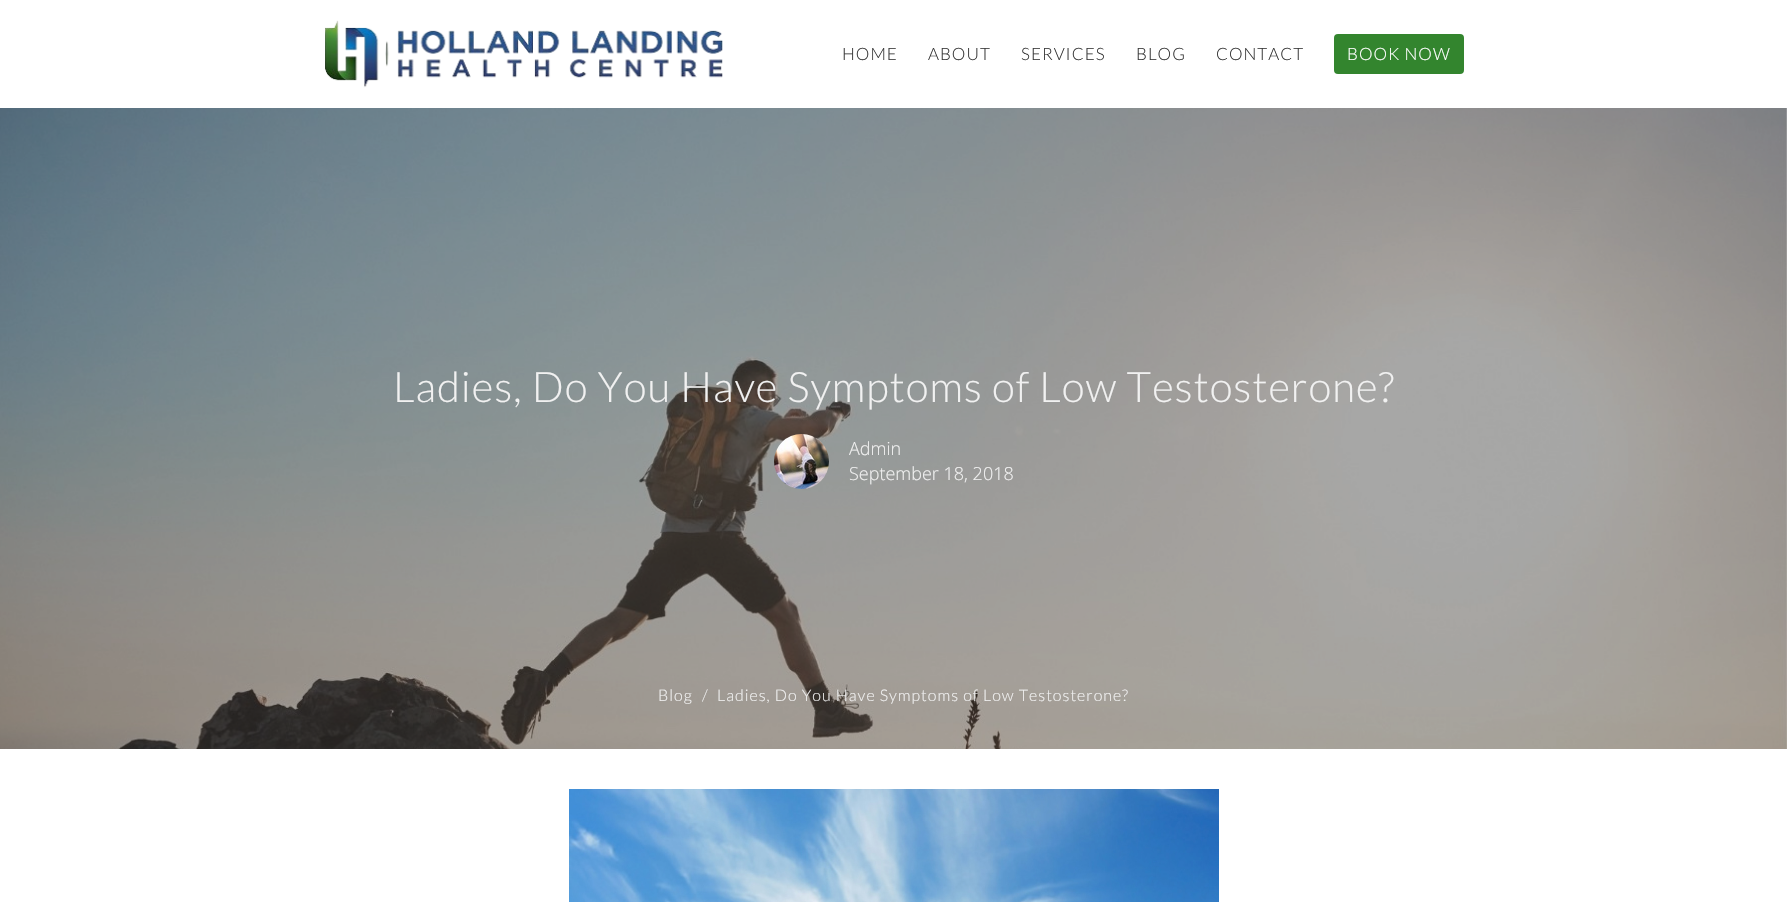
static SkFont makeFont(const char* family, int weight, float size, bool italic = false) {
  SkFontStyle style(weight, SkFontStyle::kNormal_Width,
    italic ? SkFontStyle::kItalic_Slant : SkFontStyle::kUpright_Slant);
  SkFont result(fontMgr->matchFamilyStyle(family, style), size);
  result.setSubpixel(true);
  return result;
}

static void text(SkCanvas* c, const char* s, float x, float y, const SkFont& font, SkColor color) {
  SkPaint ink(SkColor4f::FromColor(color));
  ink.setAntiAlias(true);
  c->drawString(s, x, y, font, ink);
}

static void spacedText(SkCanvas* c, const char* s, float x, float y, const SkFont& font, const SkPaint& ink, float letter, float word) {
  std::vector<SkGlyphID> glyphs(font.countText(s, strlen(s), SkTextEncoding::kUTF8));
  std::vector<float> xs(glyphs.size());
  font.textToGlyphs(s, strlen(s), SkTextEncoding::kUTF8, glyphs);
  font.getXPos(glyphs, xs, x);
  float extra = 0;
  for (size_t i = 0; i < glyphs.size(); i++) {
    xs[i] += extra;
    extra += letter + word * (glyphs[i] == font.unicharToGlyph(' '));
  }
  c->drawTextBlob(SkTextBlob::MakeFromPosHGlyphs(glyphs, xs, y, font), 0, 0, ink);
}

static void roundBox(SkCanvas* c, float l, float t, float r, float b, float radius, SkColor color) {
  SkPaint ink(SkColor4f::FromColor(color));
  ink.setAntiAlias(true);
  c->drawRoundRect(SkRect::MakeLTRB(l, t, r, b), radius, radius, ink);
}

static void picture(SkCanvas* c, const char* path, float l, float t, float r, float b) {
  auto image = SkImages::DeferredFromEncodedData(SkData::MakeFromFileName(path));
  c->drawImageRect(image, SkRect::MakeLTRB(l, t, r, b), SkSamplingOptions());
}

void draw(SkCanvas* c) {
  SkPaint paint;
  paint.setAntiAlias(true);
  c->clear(0xffffffff);
  picture(c, "img_01.png", 325, 20, 723, 88);
  SkFont face1 = makeFont("Lato", 300, 17);
  paint.setColor(0xff383838);
  spacedText(c, "HOME", 842, 60, face1, paint, 1, 0);
  spacedText(c, "ABOUT", 928, 60, face1, paint, 1, 0);
  spacedText(c, "SERVICES", 1021, 60, face1, paint, 1, 0);
  spacedText(c, "BLOG", 1136, 60, face1, paint, 1, 0);
  spacedText(c, "CONTACT", 1216, 60, face1, paint, 1, 0);
  roundBox(c, 1334, 34, 1464, 74, 4, 0xff33852e);
  paint.setColor(0xffffffff);
  spacedText(c, "BOOK NOW", 1347, 60, face1, paint, 1, 0);
  picture(c, "img_02.png", 0, 108, 1787, 749);
  SkFont face2 = makeFont("Lato", 300, 42);
  paint.setColor(0xfff1f1f1);
  spacedText(c, "Ladies, Do You Have Symptoms of Low Testosterone?", 393, 402, face2, paint, 1, 0);
  picture(c, "img_03.png", 774, 434, 829, 489);
  SkFont face3 = makeFont("Open Sans", 300, 18);
  text(c, "Admin", 849, 455, face3, 0xfff1f1f1);
  text(c, "September 18, 2018", 849, 480, face3, 0xfff1f1f1);
  SkFont face4 = makeFont("Lato", 300, 16);
  spacedText(c, "Blog", 658, 701, face4, paint, 1, 0);
  spacedText(c, "/", 702, 701, face4, paint, 1, 0);
  spacedText(c, "Ladies, Do You Have Symptoms of Low Testosterone?", 717, 701, face4, paint, 1, 0);
  picture(c, "img_04.png", 569, 789, 1219, 902);
}
